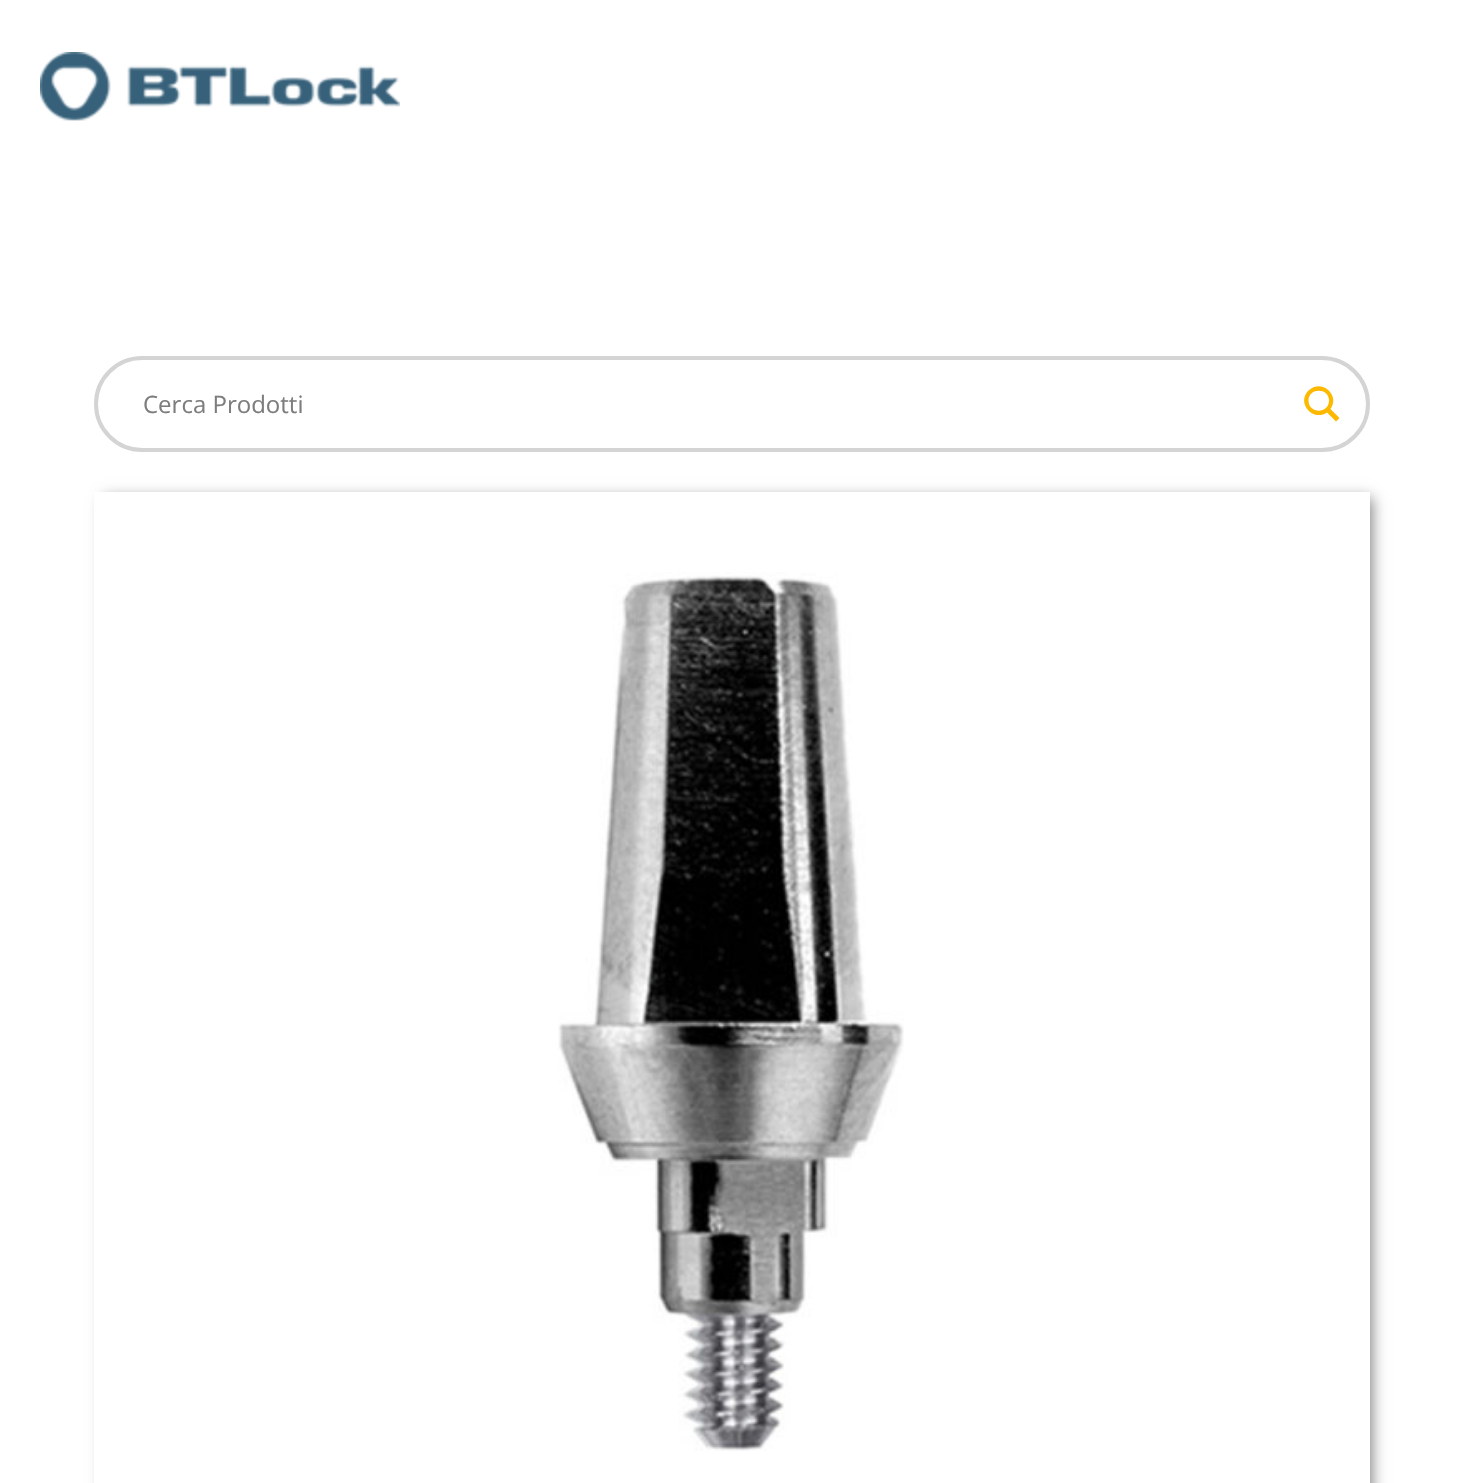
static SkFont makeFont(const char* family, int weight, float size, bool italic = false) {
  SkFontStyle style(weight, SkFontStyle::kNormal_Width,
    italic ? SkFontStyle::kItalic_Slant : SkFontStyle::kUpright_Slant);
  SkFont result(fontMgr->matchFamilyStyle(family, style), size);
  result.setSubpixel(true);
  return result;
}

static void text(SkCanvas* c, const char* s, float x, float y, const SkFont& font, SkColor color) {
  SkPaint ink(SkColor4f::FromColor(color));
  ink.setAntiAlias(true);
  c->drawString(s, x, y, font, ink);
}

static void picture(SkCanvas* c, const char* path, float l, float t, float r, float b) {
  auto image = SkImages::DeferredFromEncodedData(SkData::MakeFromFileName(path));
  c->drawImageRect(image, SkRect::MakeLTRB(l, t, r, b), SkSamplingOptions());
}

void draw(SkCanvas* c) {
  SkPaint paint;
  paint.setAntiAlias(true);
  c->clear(0xffffffff);
  picture(c, "img_01.png", 40, 52, 400, 121);
  paint.setStyle(SkPaint::kStroke_Style);
  paint.setStrokeWidth(4);
  paint.setColor(0xffd4d4d4);
  c->drawRoundRect(SkRect::MakeLTRB(96, 358, 1368, 450), 46, 46, paint);
  SkFont face1 = makeFont("Open Sans", 400, 24);
  text(c, "Cerca Prodotti", 143, 413, face1, 0xff7d7d7d);
  paint.setStyle(SkPaint::kFill_Style);
  paint.setColor(0xfffcb900);
  c->drawPath(SkPathBuilder().moveTo(1339.5f, 418).lineTo(1330.5f, 409).cubicTo(1340.5f, 395, 1321.5f, 378, 1308.5f, 390.5f).cubicTo(1296, 403, 1313, 422, 1327, 412.5f).lineTo(1336, 421.5f).close().moveTo(1308.5f, 400.5f).cubicTo(1308.5f, 387.5f, 1329, 387.5f, 1329, 400.5f).cubicTo(1329, 414, 1308.5f, 414, 1308.5f, 400.5f).close().detach(), paint);
  c->save();
  c->clipPath(SkPathBuilder(SkPathFillType::kEvenOdd).moveTo(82, 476).lineTo(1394, 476).lineTo(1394, 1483).lineTo(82, 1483).close().moveTo(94, 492).lineTo(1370, 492).lineTo(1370, 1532).lineTo(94, 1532).close().detach(), true);
  paint.setColor(0x80000000);
  paint.setMaskFilter(SkMaskFilter::MakeBlur(kNormal_SkBlurStyle, 7));
  c->drawRect(SkRect::MakeLTRB(104, 498, 1372, 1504), paint);
  paint.setMaskFilter(nullptr);
  c->restore();
  picture(c, "img_02.png", 558, 572, 904, 1451);
}
